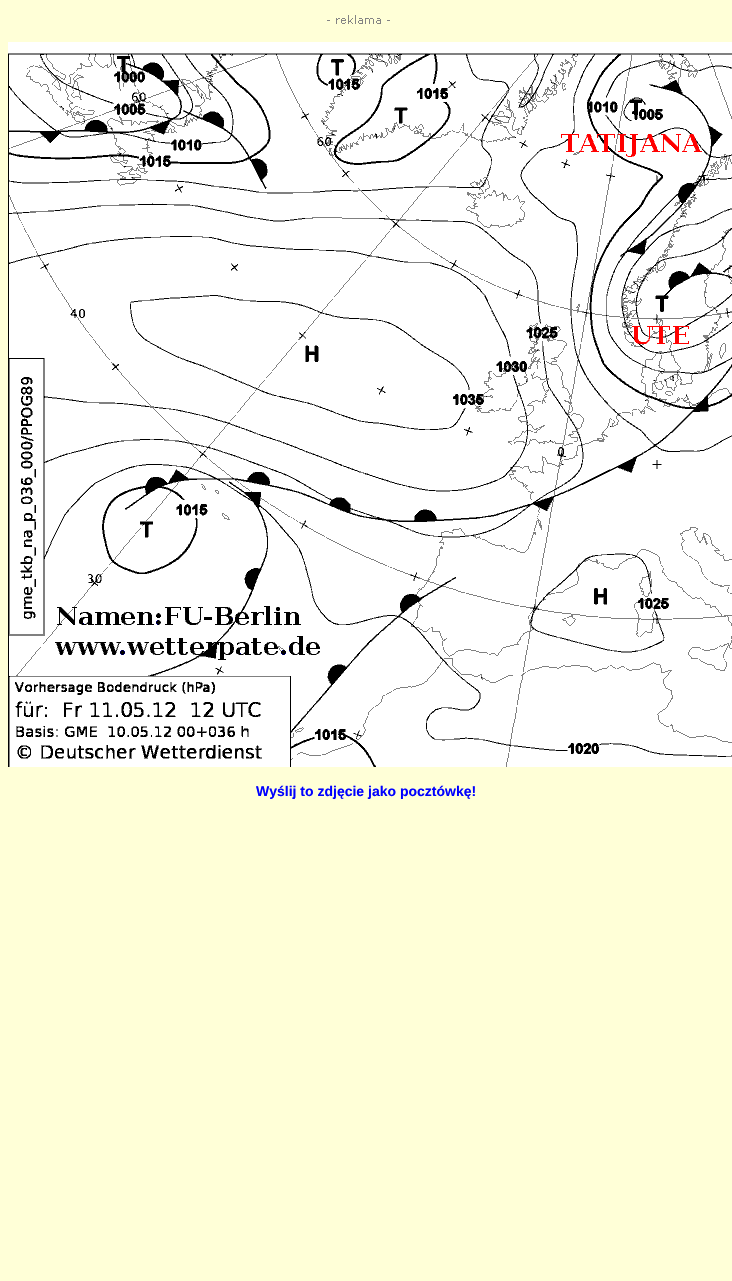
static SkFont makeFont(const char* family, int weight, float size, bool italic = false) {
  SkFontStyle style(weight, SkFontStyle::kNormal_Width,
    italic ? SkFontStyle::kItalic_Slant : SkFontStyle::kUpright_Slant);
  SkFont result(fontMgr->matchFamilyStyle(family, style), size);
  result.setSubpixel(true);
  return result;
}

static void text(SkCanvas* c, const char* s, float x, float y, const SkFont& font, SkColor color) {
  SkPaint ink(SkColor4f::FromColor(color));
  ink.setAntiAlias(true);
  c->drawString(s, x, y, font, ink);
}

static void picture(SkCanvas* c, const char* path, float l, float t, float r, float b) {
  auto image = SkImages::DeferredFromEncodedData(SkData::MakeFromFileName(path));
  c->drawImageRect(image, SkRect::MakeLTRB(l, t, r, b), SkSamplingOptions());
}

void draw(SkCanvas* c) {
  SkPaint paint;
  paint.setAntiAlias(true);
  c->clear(0xffffffd7);
  picture(c, "img_01.png", 327, 15, 390, 24);
  picture(c, "img_02.png", 8, 42, 732, 767);
  SkFont face1 = makeFont("Liberation Sans", 700, 14);
  text(c, "Wyślij to zdjęcie jako pocztówkę!", 256, 796, face1, 0xff0000ff);
}
